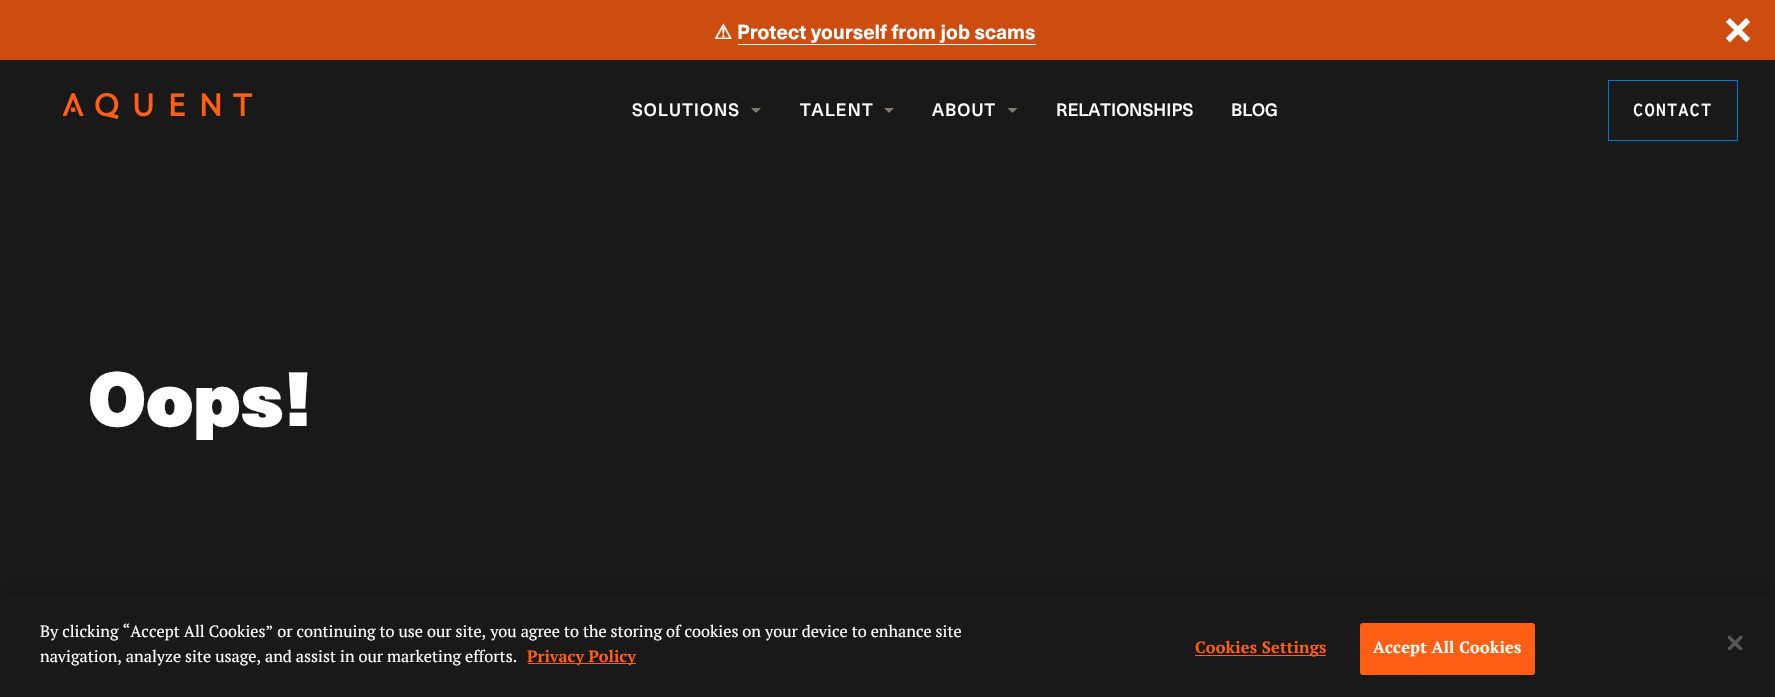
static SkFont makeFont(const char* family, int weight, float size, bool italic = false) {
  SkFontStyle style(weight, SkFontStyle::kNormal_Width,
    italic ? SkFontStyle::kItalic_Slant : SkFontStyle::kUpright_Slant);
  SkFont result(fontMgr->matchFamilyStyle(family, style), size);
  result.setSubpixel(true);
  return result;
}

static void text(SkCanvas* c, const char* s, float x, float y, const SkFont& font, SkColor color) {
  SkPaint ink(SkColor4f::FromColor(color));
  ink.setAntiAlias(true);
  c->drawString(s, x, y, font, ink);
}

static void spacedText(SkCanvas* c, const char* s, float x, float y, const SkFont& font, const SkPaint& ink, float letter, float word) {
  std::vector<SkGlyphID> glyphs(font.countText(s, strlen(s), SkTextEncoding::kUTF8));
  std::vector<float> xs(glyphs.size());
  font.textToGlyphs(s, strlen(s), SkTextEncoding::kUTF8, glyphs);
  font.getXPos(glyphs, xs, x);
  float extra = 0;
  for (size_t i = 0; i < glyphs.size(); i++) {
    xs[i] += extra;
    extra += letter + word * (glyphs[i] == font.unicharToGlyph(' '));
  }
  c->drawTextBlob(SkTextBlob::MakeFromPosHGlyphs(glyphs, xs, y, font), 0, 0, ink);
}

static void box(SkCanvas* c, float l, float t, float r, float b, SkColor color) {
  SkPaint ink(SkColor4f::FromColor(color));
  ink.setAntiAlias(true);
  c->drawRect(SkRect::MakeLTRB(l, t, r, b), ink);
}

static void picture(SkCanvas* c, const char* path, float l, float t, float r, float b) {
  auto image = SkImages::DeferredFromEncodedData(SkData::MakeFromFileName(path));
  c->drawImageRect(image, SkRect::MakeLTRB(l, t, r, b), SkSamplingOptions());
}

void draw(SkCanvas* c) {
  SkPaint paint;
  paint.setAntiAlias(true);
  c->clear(0xffcd4d10);
  SkFont face1 = makeFont("DejaVu Sans", 700, 20);
  text(c, "⚠", 714, 39, face1, 0xffffffff);
  SkFont face2 = makeFont("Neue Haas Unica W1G", 700, 20);
  text(c, "Protect yourself from job scams", 737, 39, face2, 0xffffffff);
  box(c, 738, 44, 1036, 45, 0xffffffff);
  SkFont face3 = makeFont("Overpass Mono", 600, 52);
  paint.setColor(0xffffffff);
  spacedText(c, "×", 1722, 48, face3, paint, 0.5f, 0);
  box(c, 0, 60, 1775, 595, 0xff1a1919);
  picture(c, "img_01.png", 63, 93, 253, 120);
  SkFont face4 = makeFont("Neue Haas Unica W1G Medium", 500, 17.5f);
  spacedText(c, "SOLUTIONS", 632, 116, face4, paint, 1, 0);
  paint.setColor(0xff83786f);
  c->drawPath(SkPathBuilder().moveTo(756, 113).lineTo(761, 108).lineTo(751, 108).close().detach(), paint);
  paint.setColor(0xffffffff);
  spacedText(c, "TALENT", 800, 116, face4, paint, 1, 0);
  paint.setColor(0xff83786f);
  c->drawPath(SkPathBuilder().moveTo(889, 113).lineTo(894, 108).lineTo(884, 108).close().detach(), paint);
  paint.setColor(0xffffffff);
  spacedText(c, "ABOUT", 932, 116, face4, paint, 1, 0);
  paint.setColor(0xff83786f);
  c->drawPath(SkPathBuilder().moveTo(1012.5f, 113).lineTo(1017.5f, 108).lineTo(1007.5f, 108).close().detach(), paint);
  text(c, "RELATIONSHIPS", 1056, 116, face4, 0xffffffff);
  text(c, "BLOG", 1231, 116, face4, 0xffffffff);
  paint.setStyle(SkPaint::kStroke_Style);
  paint.setStrokeWidth(1);
  paint.setColor(0xff0077c8);
  c->drawRect(SkRect::MakeLTRB(1608.5f, 80.5f, 1737.5f, 140.5f), paint);
  SkFont face5 = makeFont("Overpass Mono", 600, 17.5f);
  paint.setStyle(SkPaint::kFill_Style);
  paint.setColor(0xffffffff);
  spacedText(c, "CONTACT", 1633, 116, face5, paint, 0.5f, 0);
  SkFont face6 = makeFont("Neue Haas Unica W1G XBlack", 900, 75);
  spacedText(c, "Oops!", 88, 426, face6, paint, -0.25f, 0);
  paint.setColor(0x33000000);
  paint.setMaskFilter(SkMaskFilter::MakeBlur(kNormal_SkBlurStyle, 11));
  c->drawRect(SkRect::MakeLTRB(0, 595, 1775, 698), paint);
  paint.setMaskFilter(nullptr);
  box(c, 0, 595, 1775, 697, 0xff1a1919);
  SkFont face7 = makeFont("PT Serif", 400, 16.25f);
  text(c, "By clicking “Accept All Cookies” or continuing to use our site, you agree to the storing of cookies on your device to enhance site", 40, 637, face7, 0xffffffff);
  text(c, "navigation, analyze site usage, and assist in our marketing efforts.", 40, 662, face7, 0xffffffff);
  box(c, 528, 663, 636, 664, 0xffff5f14);
  SkFont face8 = makeFont("PT Serif", 700, 16.25f);
  text(c, "Privacy Policy", 527, 662, face8, 0xffff5f14);
  box(c, 1195, 655, 1326, 656, 0xffff5f14);
  paint.setColor(0xffff5f14);
  spacedText(c, "Cookies Settings", 1195, 653, face8, paint, 0.2f, 0);
  c->drawRoundRect(SkRect::MakeLTRB(1360.5f, 623.5f, 1534.5f, 674.5f), 2, 2, paint);
  paint.setStyle(SkPaint::kStroke_Style);
  c->drawRoundRect(SkRect::MakeLTRB(1360.5f, 623.5f, 1534.5f, 674.5f), 2, 2, paint);
  paint.setStyle(SkPaint::kFill_Style);
  paint.setColor(0xffffffff);
  spacedText(c, "Accept All Cookies", 1373, 653, face8, paint, 0.2f, 0);
  picture(c, "img_02.png", 1728, 635, 1743, 650);
}
